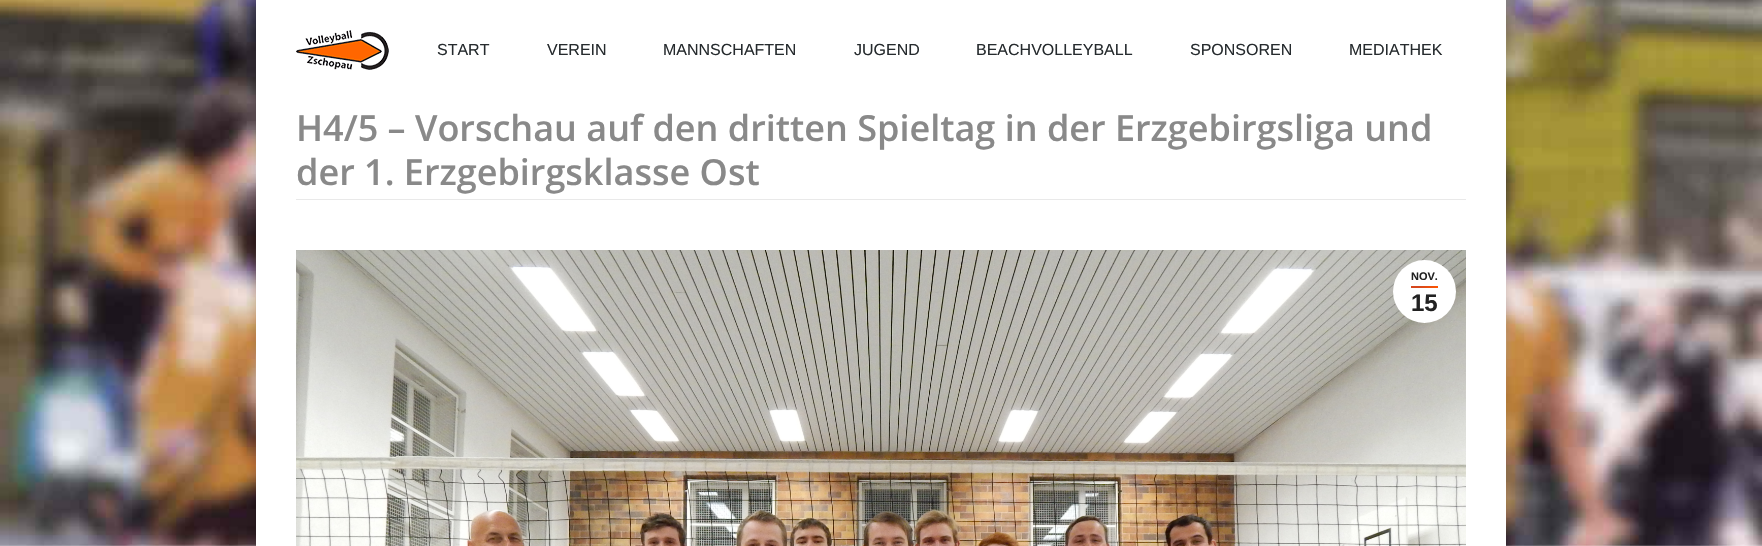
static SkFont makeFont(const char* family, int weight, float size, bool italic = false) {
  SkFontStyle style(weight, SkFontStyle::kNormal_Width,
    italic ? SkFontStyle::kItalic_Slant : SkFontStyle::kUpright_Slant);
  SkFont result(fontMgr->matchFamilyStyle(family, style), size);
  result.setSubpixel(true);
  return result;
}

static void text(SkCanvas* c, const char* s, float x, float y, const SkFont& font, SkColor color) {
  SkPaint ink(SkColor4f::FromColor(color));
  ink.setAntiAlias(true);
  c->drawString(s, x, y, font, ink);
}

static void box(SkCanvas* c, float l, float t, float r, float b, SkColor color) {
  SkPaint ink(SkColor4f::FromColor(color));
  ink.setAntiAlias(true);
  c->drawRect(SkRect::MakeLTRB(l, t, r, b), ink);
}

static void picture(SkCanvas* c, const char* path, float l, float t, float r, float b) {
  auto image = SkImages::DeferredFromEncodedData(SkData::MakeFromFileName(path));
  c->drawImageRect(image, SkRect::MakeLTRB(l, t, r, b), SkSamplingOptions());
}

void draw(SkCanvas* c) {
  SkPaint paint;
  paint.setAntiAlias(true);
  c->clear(0xffffffff);
  picture(c, "img_01.png", 0, 0, 1762, 546);
  paint.setColor(0x26000000);
  paint.setMaskFilter(SkMaskFilter::MakeBlur(kNormal_SkBlurStyle, 6));
  c->drawRect(SkRect::MakeLTRB(256, 0, 1506, 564), paint);
  paint.setMaskFilter(nullptr);
  box(c, 256, 0, 1506, 546, 0xffffffff);
  picture(c, "img_02.png", 296, 30, 389, 70);
  SkFont face1 = makeFont("Liberation Sans", 400, 16);
  text(c, "START", 437, 55, face1, 0xff262b2e);
  text(c, "VEREIN", 547, 55, face1, 0xff262b2e);
  text(c, "MANNSCHAFTEN", 663, 55, face1, 0xff262b2e);
  text(c, "JUGEND", 854, 55, face1, 0xff262b2e);
  text(c, "BEACHVOLLEYBALL", 976, 55, face1, 0xff262b2e);
  text(c, "SPONSOREN", 1190, 55, face1, 0xff262b2e);
  text(c, "MEDIATHEK", 1349, 55, face1, 0xff262b2e);
  SkFont face2 = makeFont("Open Sans", 600, 36);
  text(c, "H4/5 – Vorschau auf den dritten Spieltag in der Erzgebirgsliga und", 296, 141, face2, 0xff898989);
  text(c, "der 1. Erzgebirgsklasse Ost", 296, 185, face2, 0xff898989);
  box(c, 296, 199, 1466, 200, 0xffe9e9e9);
  picture(c, "img_03.png", 296, 250, 1466, 546);
  paint.setColor(0xffffffff);
  c->drawCircle(1424.5f, 291.5f, 31.5f, paint);
  SkFont face3 = makeFont("Liberation Sans", 700, 11);
  text(c, "NOV.", 1411, 280, face3, 0xff222222);
  {
    const SkColor colors[] = {0xffd6471d, 0xffff5600};
    const float stops[] = {0.3f, 1};
    const SkPoint ends[] = {{1417, 280}, {1432, 294}};
    paint.setShader(SkGradientShader::MakeLinear(ends, colors, stops, 2, SkTileMode::kClamp));
    paint.setAlpha(255);
  }
  c->drawRect(SkRect::MakeLTRB(1411, 286, 1438, 288), paint);
  SkFont face4 = makeFont("Liberation Sans", 700, 24);
  text(c, "15", 1411, 311, face4, 0xff222222);
}
